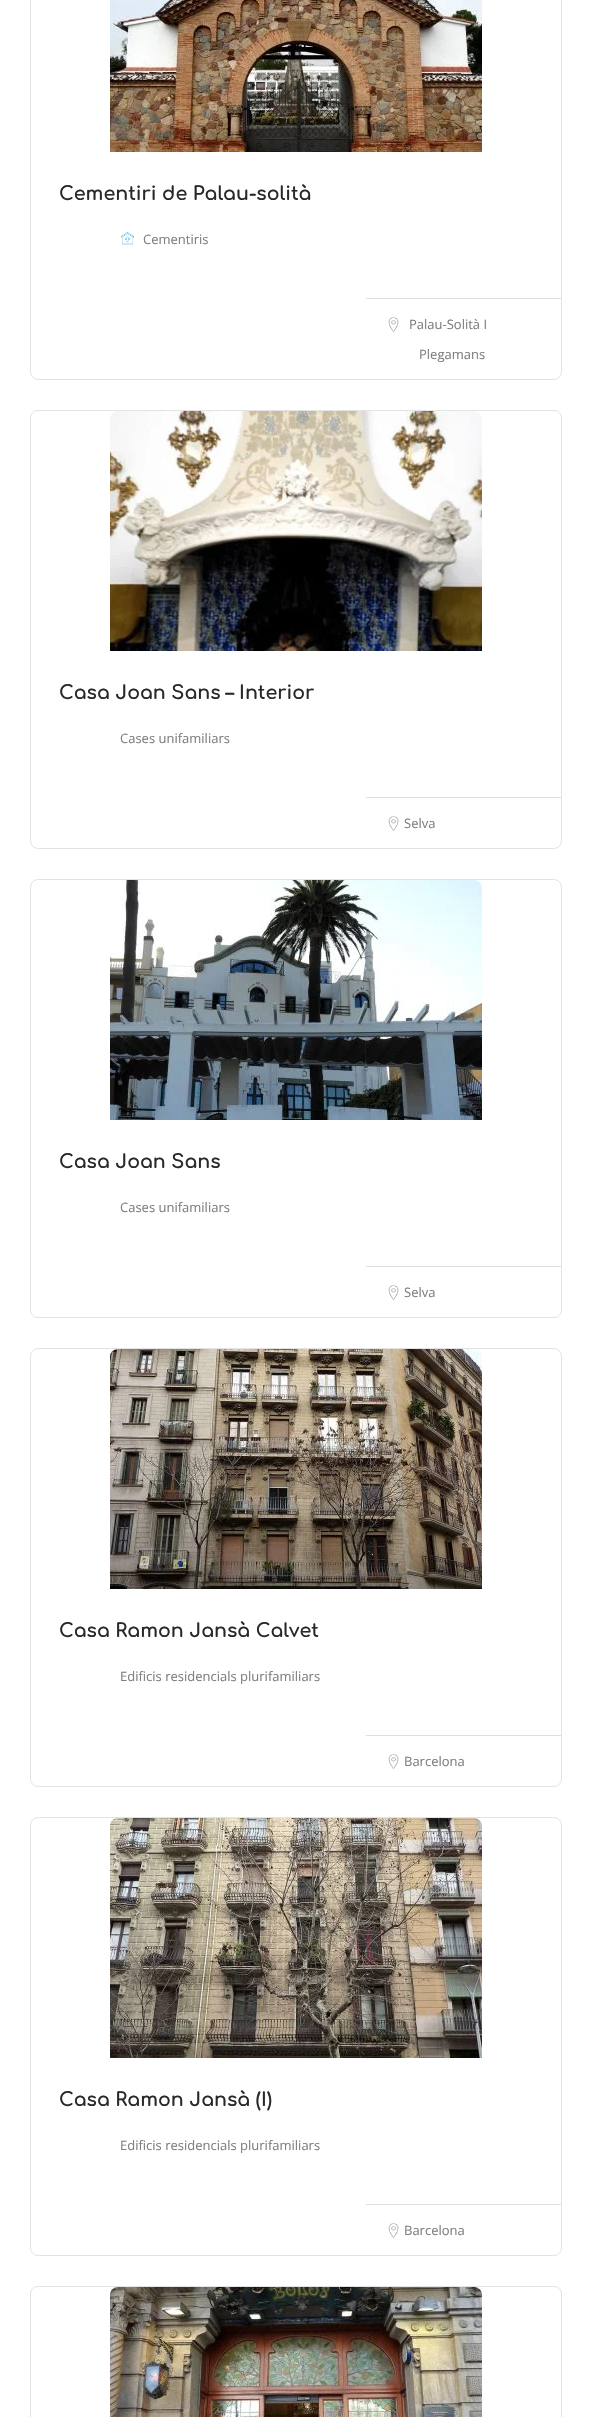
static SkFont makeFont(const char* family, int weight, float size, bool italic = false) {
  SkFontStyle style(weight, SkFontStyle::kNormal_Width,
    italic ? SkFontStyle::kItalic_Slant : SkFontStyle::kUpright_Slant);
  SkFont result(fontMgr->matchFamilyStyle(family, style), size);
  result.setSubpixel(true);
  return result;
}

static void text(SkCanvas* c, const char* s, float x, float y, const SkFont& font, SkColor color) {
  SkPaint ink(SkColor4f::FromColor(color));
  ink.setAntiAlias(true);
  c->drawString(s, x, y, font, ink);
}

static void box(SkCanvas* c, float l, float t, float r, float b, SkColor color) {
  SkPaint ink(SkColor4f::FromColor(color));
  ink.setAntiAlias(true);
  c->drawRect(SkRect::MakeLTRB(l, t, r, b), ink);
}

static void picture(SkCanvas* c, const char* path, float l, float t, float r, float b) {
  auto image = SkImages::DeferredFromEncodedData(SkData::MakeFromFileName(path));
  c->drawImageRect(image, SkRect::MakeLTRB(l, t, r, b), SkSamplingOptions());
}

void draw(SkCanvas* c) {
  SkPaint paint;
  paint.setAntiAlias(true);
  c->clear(0xffffffff);
  paint.setStyle(SkPaint::kStroke_Style);
  paint.setStrokeWidth(1);
  paint.setColor(0xffe3e3e3);
  c->drawRoundRect(SkRect::MakeLTRB(30.5f, -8.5f, 561.5f, 379.5f), 7.5f, 7.5f, paint);
  picture(c, "img_01.png", 110, 0, 482, 152);
  SkFont face1 = makeFont("Comfortaa", 700, 19);
  text(c, "Cementiri de Palau-solità", 59, 200, face1, 0xff292929);
  picture(c, "img_02.png", 121, 232, 134, 245);
  SkFont face2 = makeFont("Open Sans", 400, 13);
  text(c, "Cementiris", 143, 244, face2, 0xff7f7f7f);
  box(c, 366, 298, 561, 299, 0xffdedede);
  picture(c, "img_03.png", 388, 317, 399, 332);
  text(c, "Palau-Solità I", 409, 329, face2, 0xff7f7f7f);
  text(c, "Plegamans", 419, 359, face2, 0xff7f7f7f);
  c->drawRoundRect(SkRect::MakeLTRB(30.5f, 410.5f, 561.5f, 848.5f), 7.5f, 7.5f, paint);
  picture(c, "img_04.png", 110, 411, 482, 651);
  text(c, "Casa Joan Sans – Interior", 59, 699, face1, 0xff292929);
  text(c, "Cases unifamiliars", 120, 743, face2, 0xff7f7f7f);
  box(c, 366, 797, 561, 798, 0xffdedede);
  picture(c, "img_03.png", 388, 816, 399, 831);
  text(c, "Selva", 404, 828, face2, 0xff7f7f7f);
  c->drawRoundRect(SkRect::MakeLTRB(30.5f, 879.5f, 561.5f, 1317.5f), 7.5f, 7.5f, paint);
  picture(c, "img_05.png", 110, 880, 482, 1120);
  text(c, "Casa Joan Sans", 59, 1168, face1, 0xff292929);
  text(c, "Cases unifamiliars", 120, 1212, face2, 0xff7f7f7f);
  box(c, 366, 1266, 561, 1267, 0xffdedede);
  picture(c, "img_06.png", 388, 1285, 399, 1300);
  text(c, "Selva", 404, 1297, face2, 0xff7f7f7f);
  c->drawRoundRect(SkRect::MakeLTRB(30.5f, 1348.5f, 561.5f, 1786.5f), 7.5f, 7.5f, paint);
  picture(c, "img_07.png", 110, 1349, 482, 1589);
  text(c, "Casa Ramon Jansà Calvet", 59, 1637, face1, 0xff292929);
  text(c, "Edificis residencials plurifamiliars", 120, 1681, face2, 0xff7f7f7f);
  box(c, 366, 1735, 561, 1736, 0xffdedede);
  picture(c, "img_03.png", 388, 1754, 399, 1769);
  text(c, "Barcelona", 404, 1766, face2, 0xff7f7f7f);
  c->drawRoundRect(SkRect::MakeLTRB(30.5f, 1817.5f, 561.5f, 2255.5f), 7.5f, 7.5f, paint);
  picture(c, "img_08.png", 110, 1818, 482, 2058);
  text(c, "Casa Ramon Jansà (I)", 59, 2106, face1, 0xff292929);
  text(c, "Edificis residencials plurifamiliars", 120, 2150, face2, 0xff7f7f7f);
  box(c, 366, 2204, 561, 2205, 0xffdedede);
  picture(c, "img_03.png", 388, 2223, 399, 2238);
  text(c, "Barcelona", 404, 2235, face2, 0xff7f7f7f);
  c->drawRoundRect(SkRect::MakeLTRB(30.5f, 2286.5f, 561.5f, 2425.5f), 7.5f, 7.5f, paint);
  picture(c, "img_09.png", 110, 2287, 482, 2417);
}
